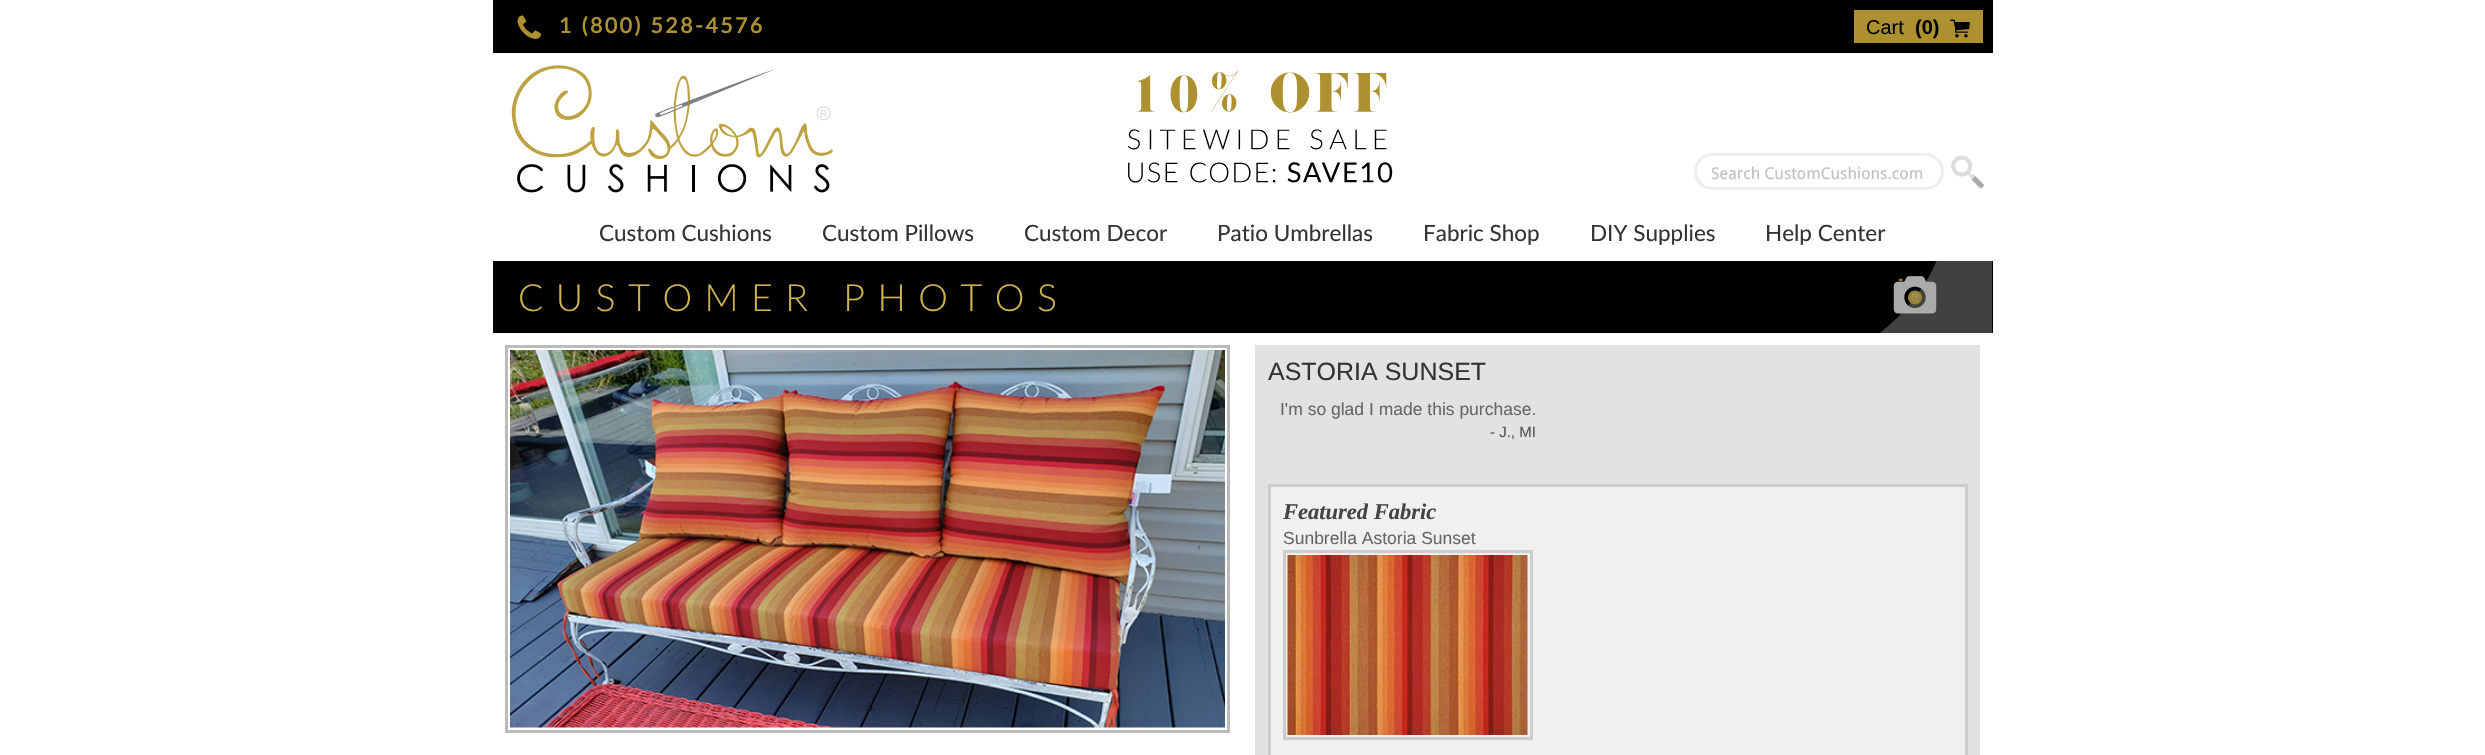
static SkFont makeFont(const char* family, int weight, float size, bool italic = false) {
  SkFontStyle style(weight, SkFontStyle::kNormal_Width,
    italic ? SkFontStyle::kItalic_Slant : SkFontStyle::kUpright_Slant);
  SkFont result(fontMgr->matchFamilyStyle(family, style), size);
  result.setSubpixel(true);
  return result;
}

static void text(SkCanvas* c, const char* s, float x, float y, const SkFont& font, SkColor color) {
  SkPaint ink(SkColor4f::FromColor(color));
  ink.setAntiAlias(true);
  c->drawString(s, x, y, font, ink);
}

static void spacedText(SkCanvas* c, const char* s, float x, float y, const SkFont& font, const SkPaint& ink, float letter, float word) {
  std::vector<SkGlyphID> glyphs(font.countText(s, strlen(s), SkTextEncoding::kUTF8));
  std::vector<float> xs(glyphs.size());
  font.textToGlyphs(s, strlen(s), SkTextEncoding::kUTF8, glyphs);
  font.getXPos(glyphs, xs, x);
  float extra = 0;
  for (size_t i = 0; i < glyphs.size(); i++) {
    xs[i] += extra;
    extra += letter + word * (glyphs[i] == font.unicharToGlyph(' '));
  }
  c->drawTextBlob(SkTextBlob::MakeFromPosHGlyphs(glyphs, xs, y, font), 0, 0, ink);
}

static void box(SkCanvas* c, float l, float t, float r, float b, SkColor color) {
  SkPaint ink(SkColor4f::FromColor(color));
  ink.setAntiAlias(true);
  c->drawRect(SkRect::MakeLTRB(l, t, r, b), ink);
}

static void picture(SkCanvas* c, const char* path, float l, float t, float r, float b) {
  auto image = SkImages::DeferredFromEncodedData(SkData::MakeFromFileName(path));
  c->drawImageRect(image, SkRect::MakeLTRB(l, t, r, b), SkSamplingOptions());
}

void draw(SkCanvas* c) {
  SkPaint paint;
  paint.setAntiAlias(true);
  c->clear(0xffffffff);
  box(c, 493, 0, 1993, 53, 0xff000000);
  picture(c, "img_01.png", 517, 15, 542, 39);
  SkFont face1 = makeFont("Lato", 700, 21.25f);
  paint.setColor(0xffad9130);
  spacedText(c, "1 (800) 528-4576", 559, 33, face1, paint, 2.5f, 0);
  box(c, 1854, 10, 1983, 43, 0xffad9130);
  SkFont face2 = makeFont("Liberation Sans", 400, 20);
  text(c, "Cart", 1866, 34, face2, 0xff000000);
  SkFont face3 = makeFont("Liberation Sans", 700, 20);
  text(c, "(0)", 1915, 34, face3, 0xff000000);
  picture(c, "img_02.png", 1950, 19, 1970, 38);
  picture(c, "img_03.png", 511, 65, 833, 193);
  picture(c, "img_04.png", 1128, 70, 1393, 183);
  paint.setStyle(SkPaint::kStroke_Style);
  paint.setStrokeWidth(3);
  paint.setColor(0xffeeeeee);
  c->drawRoundRect(SkRect::MakeLTRB(1695.5f, 154.5f, 1942.5f, 188.5f), 17, 17, paint);
  SkFont face4 = makeFont("Droid Sans", 400, 16.25f);
  text(c, "Search CustomCushions.com", 1711, 179, face4, 0xffc0c0c0);
  picture(c, "img_05.png", 1951, 155, 1985, 189);
  SkFont face5 = makeFont("Lato", 400, 22.5f);
  text(c, "Custom Cushions", 599, 241, face5, 0xff333333);
  text(c, "Custom Pillows", 822, 241, face5, 0xff333333);
  text(c, "Custom Decor", 1024, 241, face5, 0xff333333);
  text(c, "Patio Umbrellas", 1217, 241, face5, 0xff333333);
  text(c, "Fabric Shop", 1423, 241, face5, 0xff333333);
  text(c, "DIY Supplies", 1590, 241, face5, 0xff333333);
  text(c, "Help Center", 1765, 241, face5, 0xff333333);
  box(c, 493, 261, 1993, 333, 0xff000000);
  c->save();
  c->clipRect(SkRect::MakeLTRB(1733, 260, 1993, 333));
  paint.setStyle(SkPaint::kFill_Style);
  paint.setColor(0xff404141);
  c->drawPath(SkPathBuilder().moveTo(1937, 260).cubicTo(1908, 328, 1837, 374, 1732, 395).lineTo(1732, 410).lineTo(1992, 410).lineTo(1992, 260).close().detach(), paint);
  c->restore();
  box(c, 1936, 260, 1993, 261, 0xffffffff);
  SkFont face6 = makeFont("Lato", 300, 37.5f);
  paint.setColor(0xffcfb352);
  spacedText(c, "CUSTOMER PHOTOS", 518, 311, face6, paint, 12.5f, 0);
  picture(c, "img_06.png", 1893, 276, 1937, 314);
  paint.setStyle(SkPaint::kStroke_Style);
  paint.setColor(0xffbbbbbb);
  c->drawRect(SkRect::MakeLTRB(506.5f, 346.5f, 1228.5f, 731.5f), paint);
  picture(c, "img_07.png", 510, 350, 1225, 728);
  box(c, 1255, 345, 1980, 755, 0xffe1e2e4);
  SkFont face7 = makeFont("Liberation Sans", 400, 25);
  text(c, "ASTORIA SUNSET", 1268, 380, face7, 0xff333333);
  SkFont face8 = makeFont("Liberation Sans", 400, 17.5f);
  text(c, "I'm so glad I made this purchase.", 1280, 415, face8, 0xff666666);
  SkFont face9 = makeFont("Liberation Sans", 400, 15);
  text(c, "- J., MI", 1490, 437, face9, 0xff555555);
  paint.setStyle(SkPaint::kFill_Style);
  paint.setColor(0xfff0f0f0);
  c->drawRect(SkRect::MakeLTRB(1269.5f, 485.5f, 1966.5f, 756.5f), paint);
  paint.setStyle(SkPaint::kStroke_Style);
  paint.setColor(0xffcccccc);
  c->drawRect(SkRect::MakeLTRB(1269.5f, 485.5f, 1966.5f, 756.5f), paint);
  SkFont face10 = makeFont("Liberation Serif", 700, 22.5f, true);
  text(c, "Featured Fabric", 1283, 519, face10, 0xff444444);
  text(c, "Sunbrella Astoria Sunset", 1283, 544, face8, 0xff666666);
  c->drawRect(SkRect::MakeLTRB(1284.5f, 551.5f, 1531.5f, 738.5f), paint);
  picture(c, "img_08.png", 1287, 555, 1528, 735);
}
